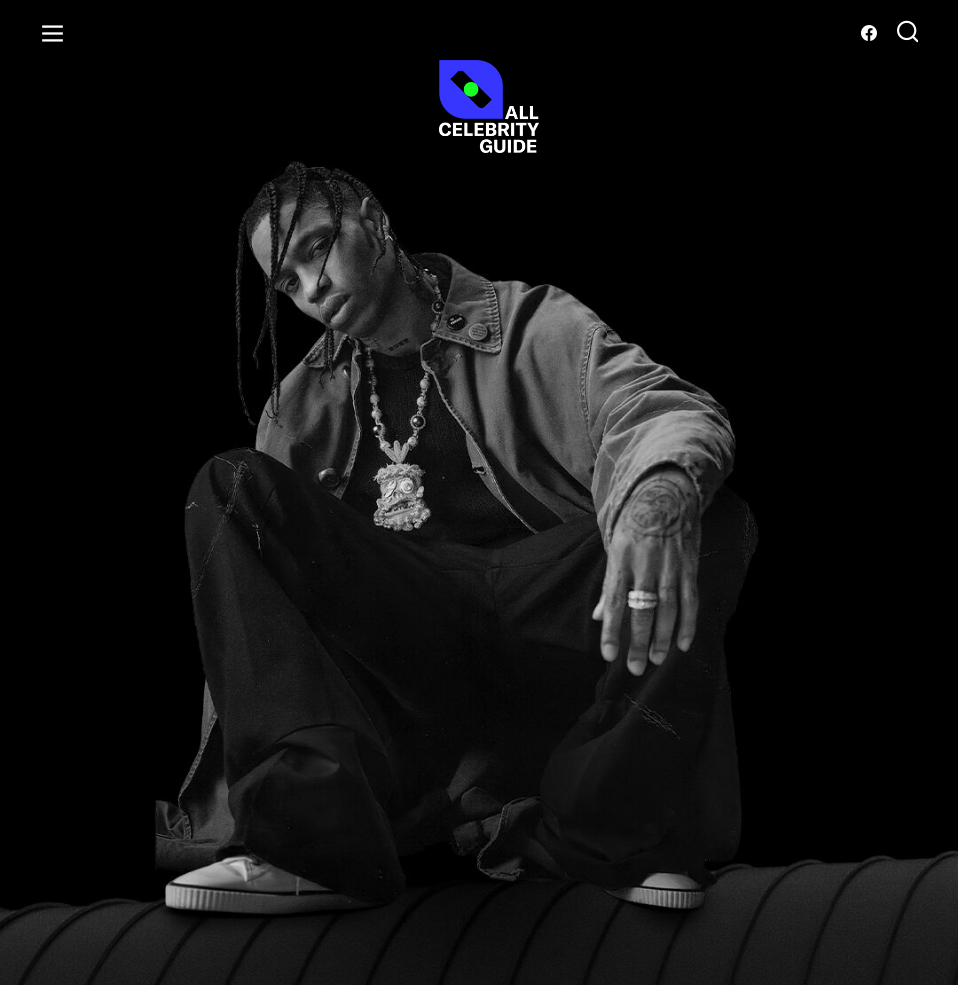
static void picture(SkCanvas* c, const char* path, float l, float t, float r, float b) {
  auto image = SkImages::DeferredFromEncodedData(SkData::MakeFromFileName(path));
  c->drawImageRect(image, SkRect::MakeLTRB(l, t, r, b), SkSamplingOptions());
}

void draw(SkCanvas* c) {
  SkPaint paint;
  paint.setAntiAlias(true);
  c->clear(0xffffffff);
  picture(c, "img_01.png", 0, 0, 958, 985);
  picture(c, "img_02.png", 42, 25, 63, 42);
  picture(c, "img_03.png", 861, 25, 877, 41);
  picture(c, "img_04.png", 897, 20, 918, 43);
  picture(c, "img_05.png", 439, 60, 539, 153);
}
